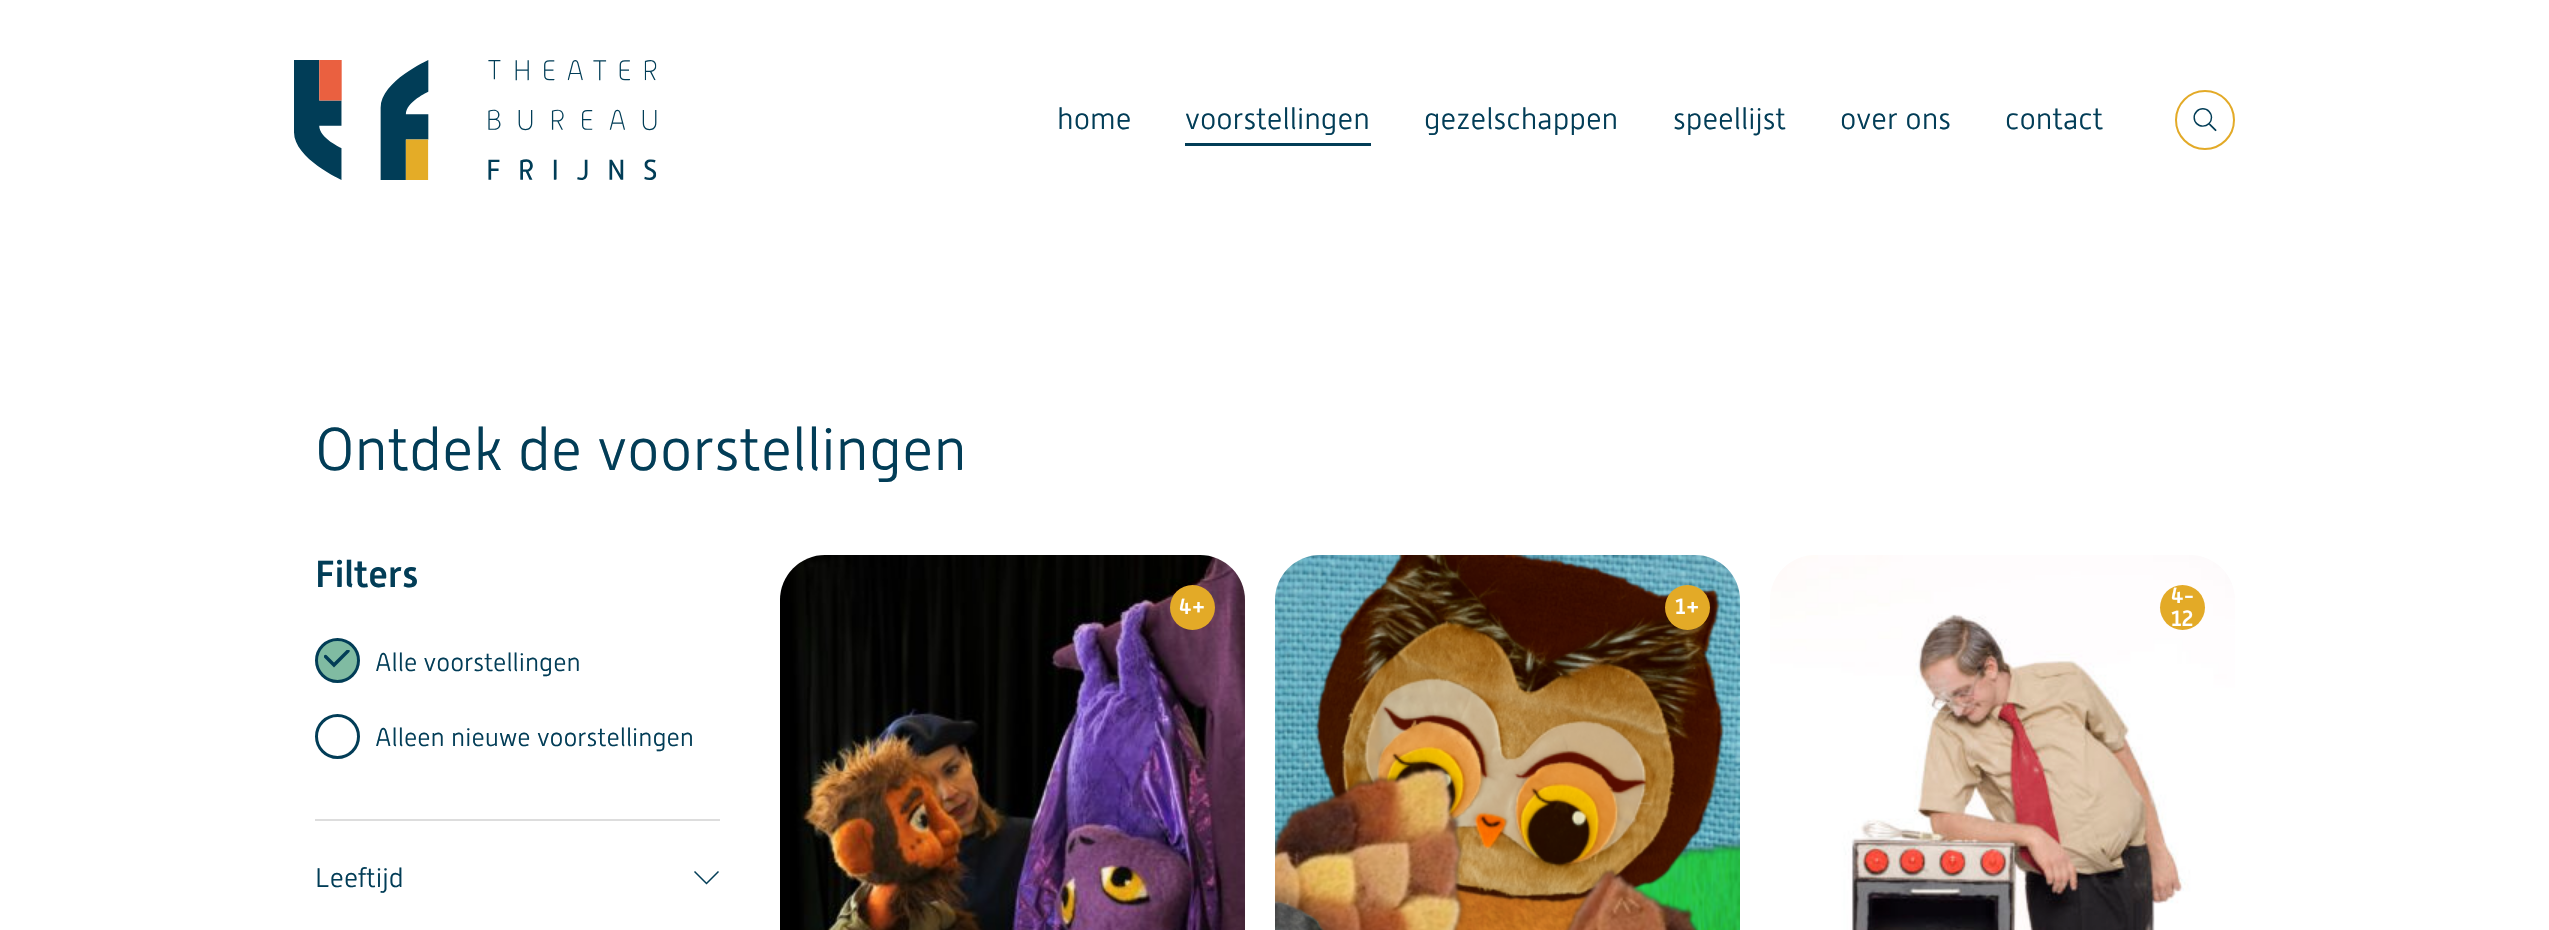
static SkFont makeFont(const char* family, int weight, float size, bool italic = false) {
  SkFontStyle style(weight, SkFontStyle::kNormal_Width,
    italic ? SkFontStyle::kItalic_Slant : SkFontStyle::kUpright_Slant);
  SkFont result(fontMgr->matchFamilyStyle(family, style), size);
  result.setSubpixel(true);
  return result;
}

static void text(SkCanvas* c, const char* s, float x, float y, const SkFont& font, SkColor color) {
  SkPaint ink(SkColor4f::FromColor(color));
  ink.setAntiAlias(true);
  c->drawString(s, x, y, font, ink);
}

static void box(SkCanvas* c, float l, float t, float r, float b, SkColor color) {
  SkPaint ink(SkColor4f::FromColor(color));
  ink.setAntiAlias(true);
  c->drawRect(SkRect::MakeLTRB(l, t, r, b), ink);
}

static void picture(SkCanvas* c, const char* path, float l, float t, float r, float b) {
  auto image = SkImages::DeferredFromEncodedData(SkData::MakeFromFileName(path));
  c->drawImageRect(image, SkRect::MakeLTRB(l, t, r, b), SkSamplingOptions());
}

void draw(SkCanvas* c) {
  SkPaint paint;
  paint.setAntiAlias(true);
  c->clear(0xffffffff);
  picture(c, "img_01.png", 294, 60, 657, 180);
  SkFont face1 = makeFont("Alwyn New", 300, 30);
  text(c, "home", 1057, 129, face1, 0xff023d57);
  text(c, "voorstellingen", 1185, 129, face1, 0xff023d57);
  box(c, 1185, 143, 1371, 146, 0xff023d57);
  text(c, "gezelschappen", 1424, 129, face1, 0xff023d57);
  text(c, "speellijst", 1673, 129, face1, 0xff023d57);
  text(c, "over ons", 1840, 129, face1, 0xff023d57);
  text(c, "contact", 2005, 129, face1, 0xff023d57);
  paint.setStyle(SkPaint::kStroke_Style);
  paint.setStrokeWidth(2);
  paint.setColor(0xffe3aa27);
  c->drawCircle(2205, 120, 29, paint);
  picture(c, "img_02.png", 2193, 108, 2217, 132);
  SkFont face2 = makeFont("Alwyn New", 300, 60);
  text(c, "Ontdek de voorstellingen", 315, 470, face2, 0xff023d57);
  SkFont face3 = makeFont("Alwyn New", 500, 37.5f);
  text(c, "Filters", 315, 587, face3, 0xff023d57);
  box(c, 315, 819, 720, 821, 0xffdddddd);
  paint.setStyle(SkPaint::kFill_Style);
  paint.setColor(0xff80bba2);
  c->drawCircle(337.5f, 660.5f, 21, paint);
  paint.setStyle(SkPaint::kStroke_Style);
  paint.setStrokeWidth(3);
  paint.setColor(0xff023d57);
  c->drawCircle(337.5f, 660.5f, 21, paint);
  c->save();
  c->clipRect(SkRect::MakeLTRB(324, 650, 350, 669));
  paint.setStrokeWidth(3.4f);
  paint.setStrokeCap(SkPaint::kRound_Cap);
  c->drawPath(SkPathBuilder().moveTo(325.5f, 656.5f).lineTo(334, 665).lineTo(348, 651).detach(), paint);
  c->restore();
  SkFont face4 = makeFont("Alwyn New", 300, 25.5f);
  text(c, "Alle voorstellingen", 375, 671, face4, 0xff023d57);
  paint.setStrokeWidth(3);
  paint.setStrokeCap(SkPaint::kButt_Cap);
  c->drawCircle(337.5f, 736.5f, 21, paint);
  text(c, "Alleen nieuwe voorstellingen", 375, 746, face4, 0xff023d57);
  SkFont face5 = makeFont("Alwyn New", 300, 27);
  text(c, "Leeftijd", 315, 887, face5, 0xff023d57);
  picture(c, "img_03.png", 694, 871, 719, 885);
  picture(c, "img_04.png", 780, 555, 1245, 930);
  paint.setStyle(SkPaint::kFill_Style);
  paint.setColor(0xffe3aa27);
  c->drawCircle(1192.5f, 607.5f, 22.5f, paint);
  SkFont face6 = makeFont("Alwyn New", 500, 22);
  text(c, "4+", 1179, 614, face6, 0xffffffff);
  picture(c, "img_05.png", 1275, 555, 1740, 930);
  c->drawCircle(1687.5f, 607.5f, 22.5f, paint);
  text(c, "1+", 1675, 614, face6, 0xffffffff);
  picture(c, "img_06.png", 1770, 555, 2235, 930);
  c->drawCircle(2182.5f, 607.5f, 22.5f, paint);
  text(c, "4-", 2171, 603, face6, 0xffffffff);
  text(c, "12", 2171, 626, face6, 0xffffffff);
}
